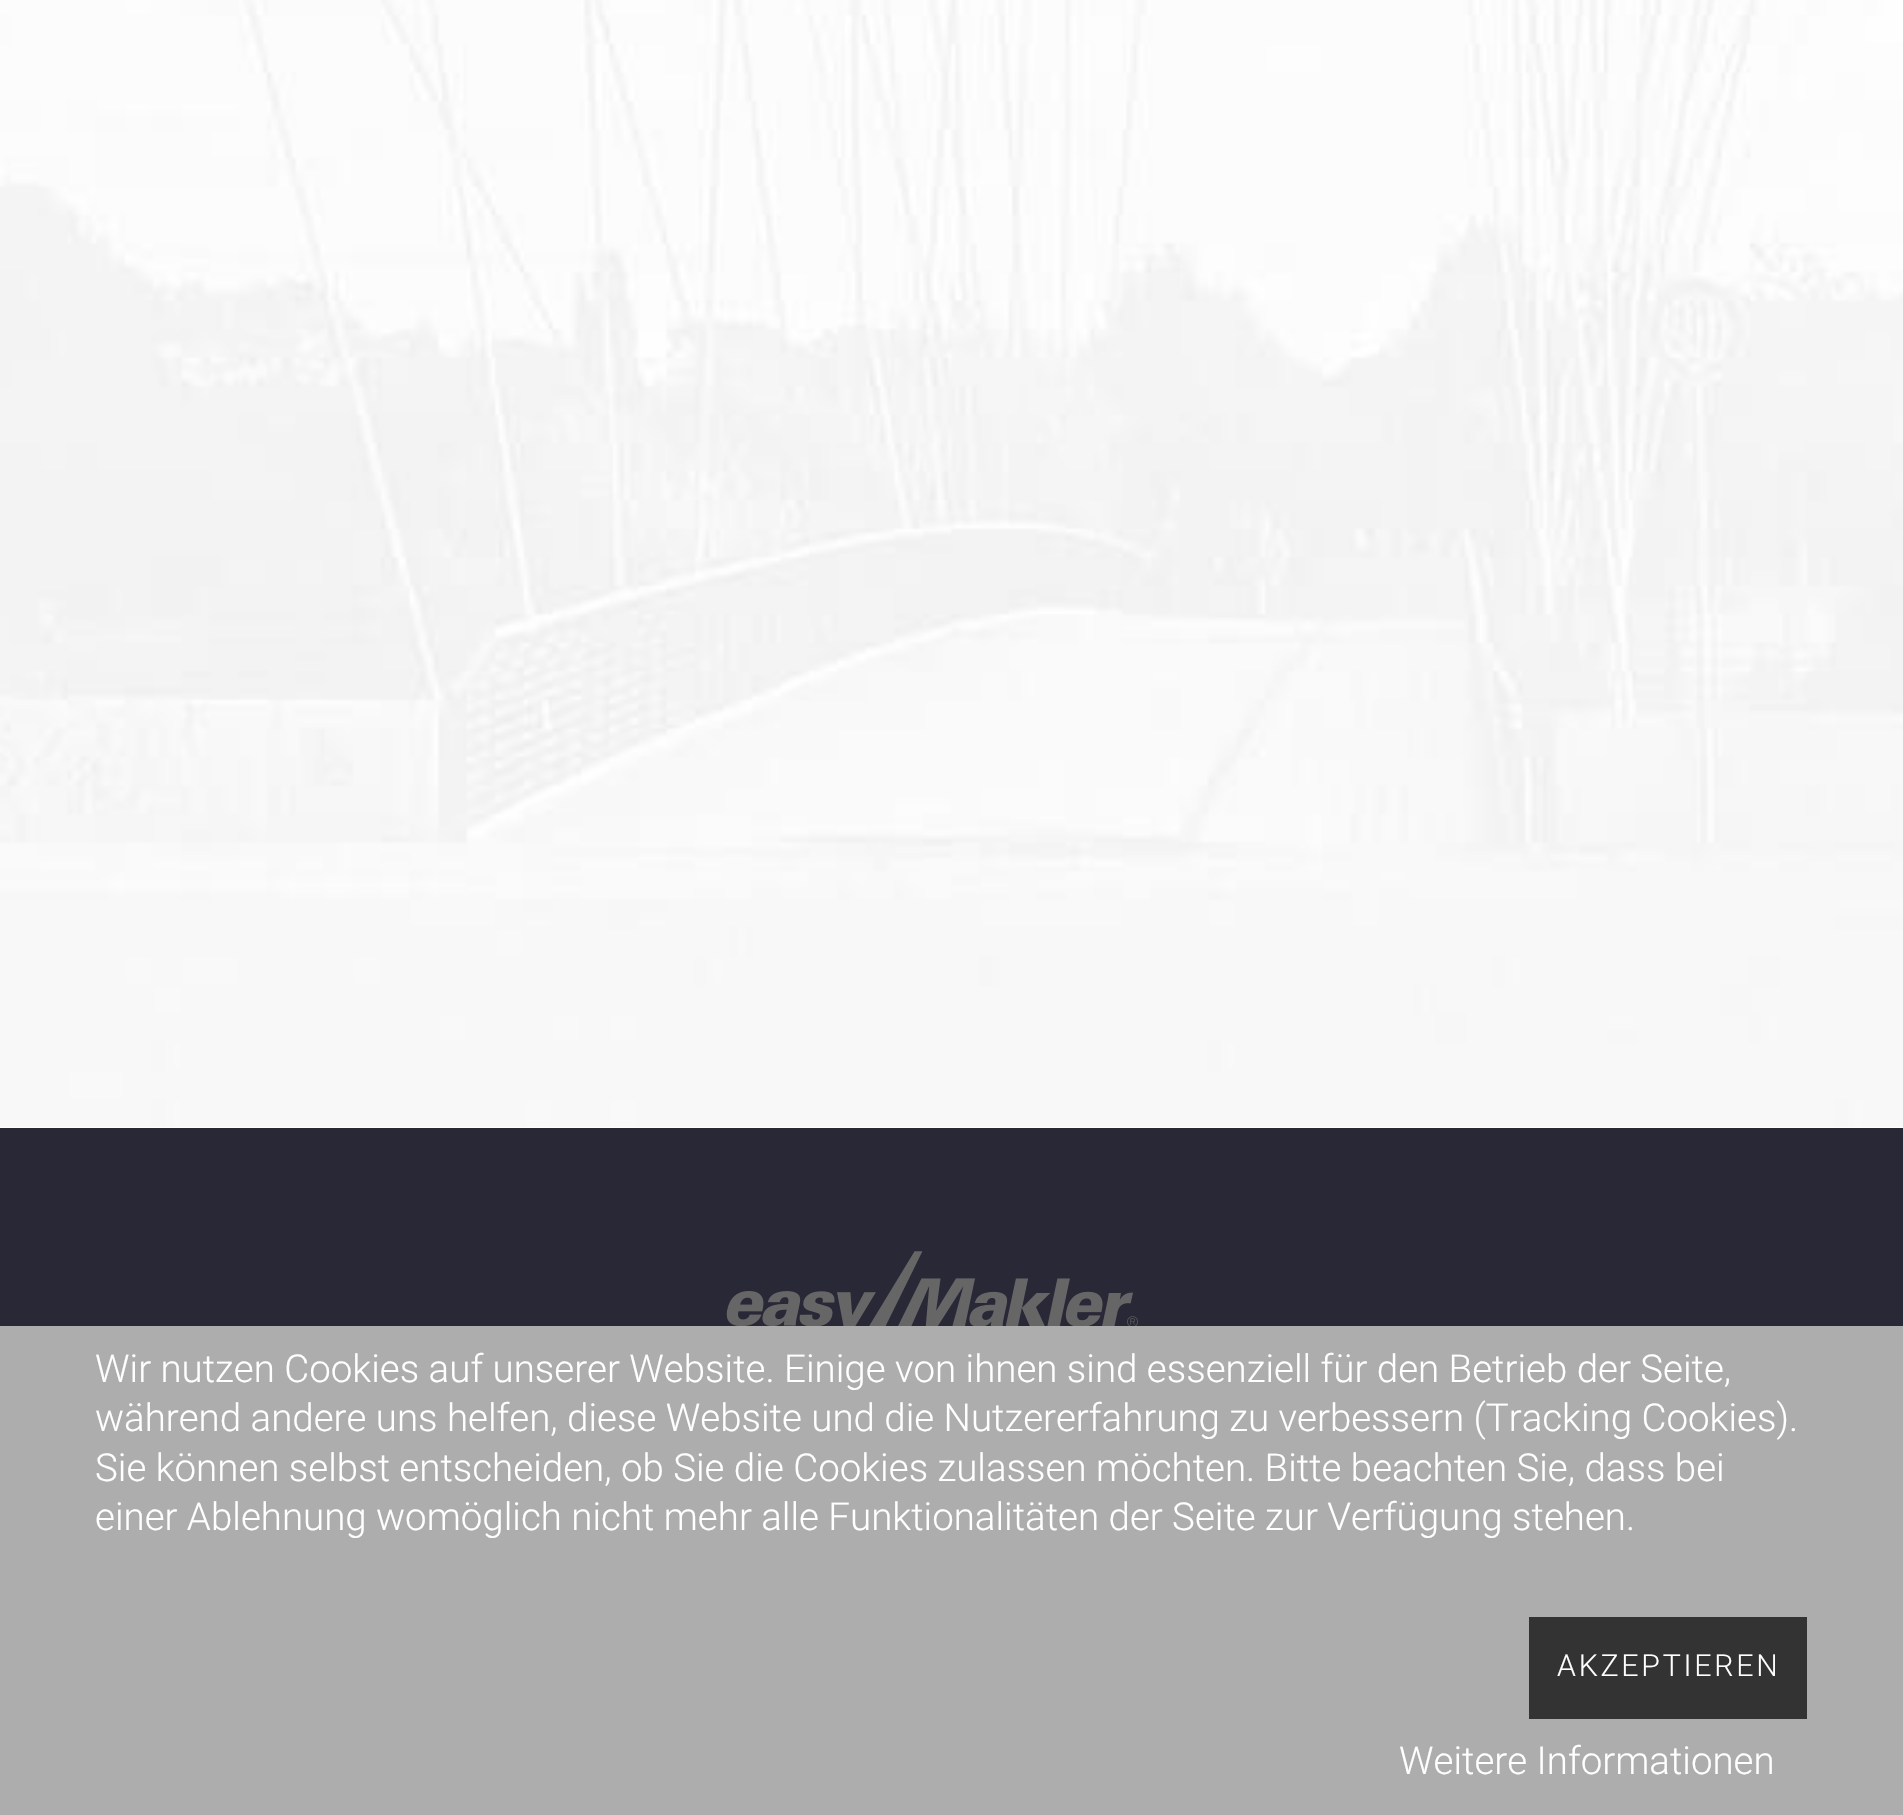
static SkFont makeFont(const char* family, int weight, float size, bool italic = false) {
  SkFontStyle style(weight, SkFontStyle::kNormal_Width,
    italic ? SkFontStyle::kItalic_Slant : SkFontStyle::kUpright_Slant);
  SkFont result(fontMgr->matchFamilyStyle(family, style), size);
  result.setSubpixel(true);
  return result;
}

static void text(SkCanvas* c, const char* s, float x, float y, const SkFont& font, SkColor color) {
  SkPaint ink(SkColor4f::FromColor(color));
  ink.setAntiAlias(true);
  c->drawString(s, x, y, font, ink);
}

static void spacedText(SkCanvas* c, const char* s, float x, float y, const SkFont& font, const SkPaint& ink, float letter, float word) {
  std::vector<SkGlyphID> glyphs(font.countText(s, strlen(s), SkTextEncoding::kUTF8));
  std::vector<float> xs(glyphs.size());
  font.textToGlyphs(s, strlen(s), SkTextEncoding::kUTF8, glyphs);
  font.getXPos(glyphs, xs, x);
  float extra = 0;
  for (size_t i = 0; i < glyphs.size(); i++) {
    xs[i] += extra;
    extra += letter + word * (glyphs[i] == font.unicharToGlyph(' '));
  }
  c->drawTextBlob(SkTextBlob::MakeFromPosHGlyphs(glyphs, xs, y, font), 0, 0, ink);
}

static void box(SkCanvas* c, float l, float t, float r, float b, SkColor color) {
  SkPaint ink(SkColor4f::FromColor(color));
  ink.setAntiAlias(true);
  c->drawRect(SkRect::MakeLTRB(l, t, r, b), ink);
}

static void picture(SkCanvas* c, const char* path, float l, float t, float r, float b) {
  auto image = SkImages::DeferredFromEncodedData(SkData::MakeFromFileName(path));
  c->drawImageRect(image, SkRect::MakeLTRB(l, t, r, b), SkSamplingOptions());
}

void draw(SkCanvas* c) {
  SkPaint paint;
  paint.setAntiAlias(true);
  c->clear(0xff282836);
  box(c, 0, 1127, 1903, 1128, 0xffffffff);
  picture(c, "img_01.png", 0, 0, 1903, 1127);
  picture(c, "img_02.png", 726, 1251, 1138, 1326);
  box(c, 0, 1326, 1903, 1815, 0xffadadad);
  SkFont face1 = makeFont("Roboto", 300, 38.5f);
  text(c, "Wir nutzen Cookies auf unserer Website. Einige von ihnen sind essenziell für den Betrieb der Seite,", 95, 1382, face1, 0xffffffff);
  text(c, "während andere uns helfen, diese Website und die Nutzererfahrung zu verbessern (Tracking Cookies).", 95, 1431, face1, 0xffffffff);
  text(c, "Sie können selbst entscheiden, ob Sie die Cookies zulassen möchten. Bitte beachten Sie, dass bei", 95, 1481, face1, 0xffffffff);
  text(c, "einer Ablehnung womöglich nicht mehr alle Funktionalitäten der Seite zur Verfügung stehen.", 95, 1530, face1, 0xffffffff);
  box(c, 1529, 1617, 1807, 1719, 0xff333333);
  SkFont face2 = makeFont("Roboto", 300, 30.25f);
  paint.setColor(0xffffffff);
  spacedText(c, "AKZEPTIEREN", 1557, 1676, face2, paint, 2.75f, 0);
  text(c, "Weitere Informationen", 1399, 1774, face1, 0xffffffff);
}
